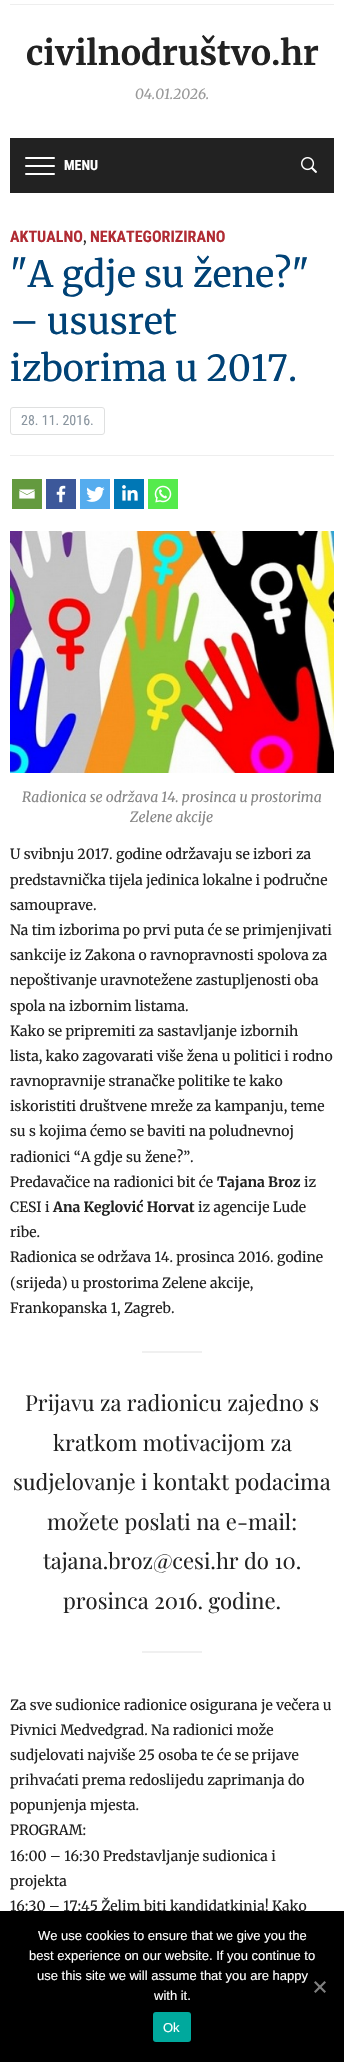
static SkFont makeFont(const char* family, int weight, float size, bool italic = false) {
  SkFontStyle style(weight, SkFontStyle::kNormal_Width,
    italic ? SkFontStyle::kItalic_Slant : SkFontStyle::kUpright_Slant);
  SkFont result(fontMgr->matchFamilyStyle(family, style), size);
  result.setSubpixel(true);
  return result;
}

static void text(SkCanvas* c, const char* s, float x, float y, const SkFont& font, SkColor color) {
  SkPaint ink(SkColor4f::FromColor(color));
  ink.setAntiAlias(true);
  c->drawString(s, x, y, font, ink);
}

static void box(SkCanvas* c, float l, float t, float r, float b, SkColor color) {
  SkPaint ink(SkColor4f::FromColor(color));
  ink.setAntiAlias(true);
  c->drawRect(SkRect::MakeLTRB(l, t, r, b), ink);
}

static void roundBox(SkCanvas* c, float l, float t, float r, float b, float radius, SkColor color) {
  SkPaint ink(SkColor4f::FromColor(color));
  ink.setAntiAlias(true);
  c->drawRoundRect(SkRect::MakeLTRB(l, t, r, b), radius, radius, ink);
}

static void picture(SkCanvas* c, const char* path, float l, float t, float r, float b) {
  auto image = SkImages::DeferredFromEncodedData(SkData::MakeFromFileName(path));
  c->drawImageRect(image, SkRect::MakeLTRB(l, t, r, b), SkSamplingOptions());
}

void draw(SkCanvas* c) {
  SkPaint paint;
  paint.setAntiAlias(true);
  c->clear(0xffffffff);
  box(c, 10, 4, 334, 5, 0xffeeeeee);
  SkFont face1 = makeFont("Merriweather", 700, 34);
  text(c, "civilnodruštvo.hr", 26, 65, face1, 0xff222222);
  SkFont face2 = makeFont("Merriweather", 400, 14, true);
  text(c, "04.01.2026.", 135, 99, face2, 0xff999999);
  box(c, 10, 138, 334, 193, 0xff222222);
  roundBox(c, 25, 157, 55, 159, 1, 0xffffffff);
  roundBox(c, 25, 165, 55, 167, 1, 0xffffffff);
  roundBox(c, 25, 173, 55, 175, 1, 0xffffffff);
  SkFont face3 = makeFont("Roboto Condensed", 700, 14);
  text(c, "MENU", 64, 170, face3, 0xffffffff);
  picture(c, "img_01.png", 301, 157, 317, 173);
  SkFont face4 = makeFont("Roboto Condensed", 700, 16);
  text(c, "AKTUALNO", 10, 242, face4, 0xffb02b33);
  SkFont face5 = makeFont("Merriweather", 400, 14);
  text(c, ",", 83, 242, face5, 0xff222222);
  text(c, "NEKATEGORIZIRANO", 90, 242, face4, 0xffb02b33);
  SkFont face6 = makeFont("Merriweather", 400, 36);
  text(c, "\"A gdje su žene?\"", 10, 287, face6, 0xff004276);
  text(c, "– ususret", 10, 334, face6, 0xff004276);
  text(c, "izborima u 2017.", 10, 381, face6, 0xff004276);
  box(c, 10, 455, 334, 456, 0xffeeeeee);
  paint.setStyle(SkPaint::kStroke_Style);
  paint.setStrokeWidth(1);
  paint.setColor(0xffdfe0e0);
  c->drawRoundRect(SkRect::MakeLTRB(10.5f, 407.5f, 104.5f, 434.5f), 2.5f, 2.5f, paint);
  SkFont face7 = makeFont("Roboto Condensed", 400, 14);
  text(c, "28. 11. 2016.", 21, 425, face7, 0xff8b96a0);
  box(c, 12, 479, 42, 509, 0xff649a3f);
  picture(c, "img_02.png", 19, 489, 35, 499);
  box(c, 46, 479, 76, 509, 0xff3c589a);
  picture(c, "img_03.png", 56, 485, 66, 503);
  box(c, 80, 479, 110, 509, 0xff55acee);
  picture(c, "img_04.png", 86, 486, 105, 502);
  box(c, 114, 479, 144, 509, 0xff0077b5);
  picture(c, "img_05.png", 122, 485, 138, 501);
  box(c, 148, 479, 178, 509, 0xff55eb4c);
  picture(c, "img_06.png", 154, 485, 172, 503);
  picture(c, "img_07.png", 10, 531, 334, 773);
  text(c, "Radionica se održava 14. prosinca u prostorima", 22, 802, face2, 0xff868686);
  text(c, "Zelene akcije", 130, 822, face2, 0xff868686);
  text(c, "U svibnju 2017. godine održavaju se izbori za", 10, 859, face5, 0xff222222);
  text(c, "predstavnička tijela jedinica lokalne i područne", 10, 885, face5, 0xff222222);
  text(c, "samouprave.", 10, 910, face5, 0xff222222);
  text(c, "Na tim izborima po prvi puta će se primjenjivati", 10, 935, face5, 0xff222222);
  text(c, "sankcije iz Zakona o ravnopravnosti spolova za", 10, 960, face5, 0xff222222);
  text(c, "nepoštivanje uravnotežene zastupljenosti oba", 10, 985, face5, 0xff222222);
  text(c, "spola na izbornim listama.", 10, 1011, face5, 0xff222222);
  text(c, "Kako se pripremiti za sastavljanje izbornih", 10, 1036, face5, 0xff222222);
  text(c, "lista, kako zagovarati više žena u politici i rodno", 10, 1061, face5, 0xff222222);
  text(c, "ravnopravnije stranačke politike te kako", 10, 1086, face5, 0xff222222);
  text(c, "iskoristiti društvene mreže za kampanju, teme", 10, 1111, face5, 0xff222222);
  text(c, "su s kojima ćemo se baviti na poludnevnoj", 10, 1136, face5, 0xff222222);
  text(c, "radionici “A gdje su žene?”.", 10, 1162, face5, 0xff222222);
  text(c, "Predavačice na radionici bit će", 10, 1187, face5, 0xff222222);
  SkFont face8 = makeFont("Merriweather", 700, 14);
  text(c, "Tajana Broz", 217, 1187, face8, 0xff222222);
  text(c, "iz", 304, 1187, face5, 0xff222222);
  text(c, "CESI i", 10, 1212, face5, 0xff222222);
  text(c, "Ana Keglović Horvat", 53, 1212, face8, 0xff222222);
  text(c, "iz agencije Lude", 198, 1212, face5, 0xff222222);
  text(c, "ribe.", 10, 1237, face5, 0xff222222);
  text(c, "Radionica se održava 14. prosinca 2016. godine", 10, 1262, face5, 0xff222222);
  text(c, "(srijeda) u prostorima Zelene akcije,", 10, 1288, face5, 0xff222222);
  text(c, "Frankopanska 1, Zagreb.", 10, 1313, face5, 0xff222222);
  box(c, 142, 1351, 202, 1353, 0xfff0f0f0);
  SkFont face9 = makeFont("Playfair Display", 400, 22);
  text(c, "Prijavu za radionicu zajedno s", 25, 1411, face9, 0xff222222);
  text(c, "kratkom motivacijom za", 53, 1451, face9, 0xff222222);
  text(c, "sudjelovanje i kontakt podacima", 13, 1490, face9, 0xff222222);
  text(c, "možete poslati na e-mail:", 47, 1530, face9, 0xff222222);
  text(c, "tajana.broz@cesi.hr do 10.", 43, 1569, face9, 0xff222222);
  text(c, "prosinca 2016. godine.", 63, 1609, face9, 0xff222222);
  box(c, 142, 1651, 202, 1653, 0xfff0f0f0);
  text(c, "Za sve sudionice radionice osigurana je večera u", 10, 1710, face5, 0xff222222);
  text(c, "Pivnici Medvedgrad. Na radionici može", 10, 1735, face5, 0xff222222);
  text(c, "sudjelovati najviše 25 osoba te će se prijave", 10, 1760, face5, 0xff222222);
  text(c, "prihvaćati prema redoslijedu zaprimanja do", 10, 1785, face5, 0xff222222);
  text(c, "popunjenja mjesta.", 10, 1810, face5, 0xff222222);
  text(c, "PROGRAM:", 10, 1835, face5, 0xff222222);
  text(c, "16:00 – 16:30 Predstavljanje sudionica i", 10, 1861, face5, 0xff222222);
  text(c, "projekta", 10, 1886, face5, 0xff222222);
  text(c, "16:30 – 17:45 Želim biti kandidatkinja! Kako", 10, 1911, face5, 0xff222222);
  box(c, 0, 1911, 344, 2062, 0xff000000);
  SkFont face10 = makeFont("Liberation Sans", 400, 13);
  text(c, "We use cookies to ensure that we give you the", 38, 1940, face10, 0xffffffff);
  text(c, "best experience on our website. If you continue to", 29, 1960, face10, 0xffffffff);
  text(c, "use this site we will assume that you are happy", 37, 1980, face10, 0xffffffff);
  text(c, "with it.", 154, 2000, face10, 0xffffffff);
  paint.setStyle(SkPaint::kFill_Style);
  paint.setColor(0xff808080);
  c->drawPath(SkPathBuilder().moveTo(324.5f, 1981).lineTo(326, 1982.5f).lineTo(315.5f, 1993).lineTo(314, 1991.5f).close().detach(), paint);
  c->drawPath(SkPathBuilder().moveTo(314, 1982.5f).lineTo(315.5f, 1981).lineTo(326, 1991.5f).lineTo(324.5f, 1993).close().detach(), paint);
  roundBox(c, 153, 2012, 191, 2042, 3, 0xff00a99d);
  text(c, "Ok", 163, 2032, face10, 0xffffffff);
}
